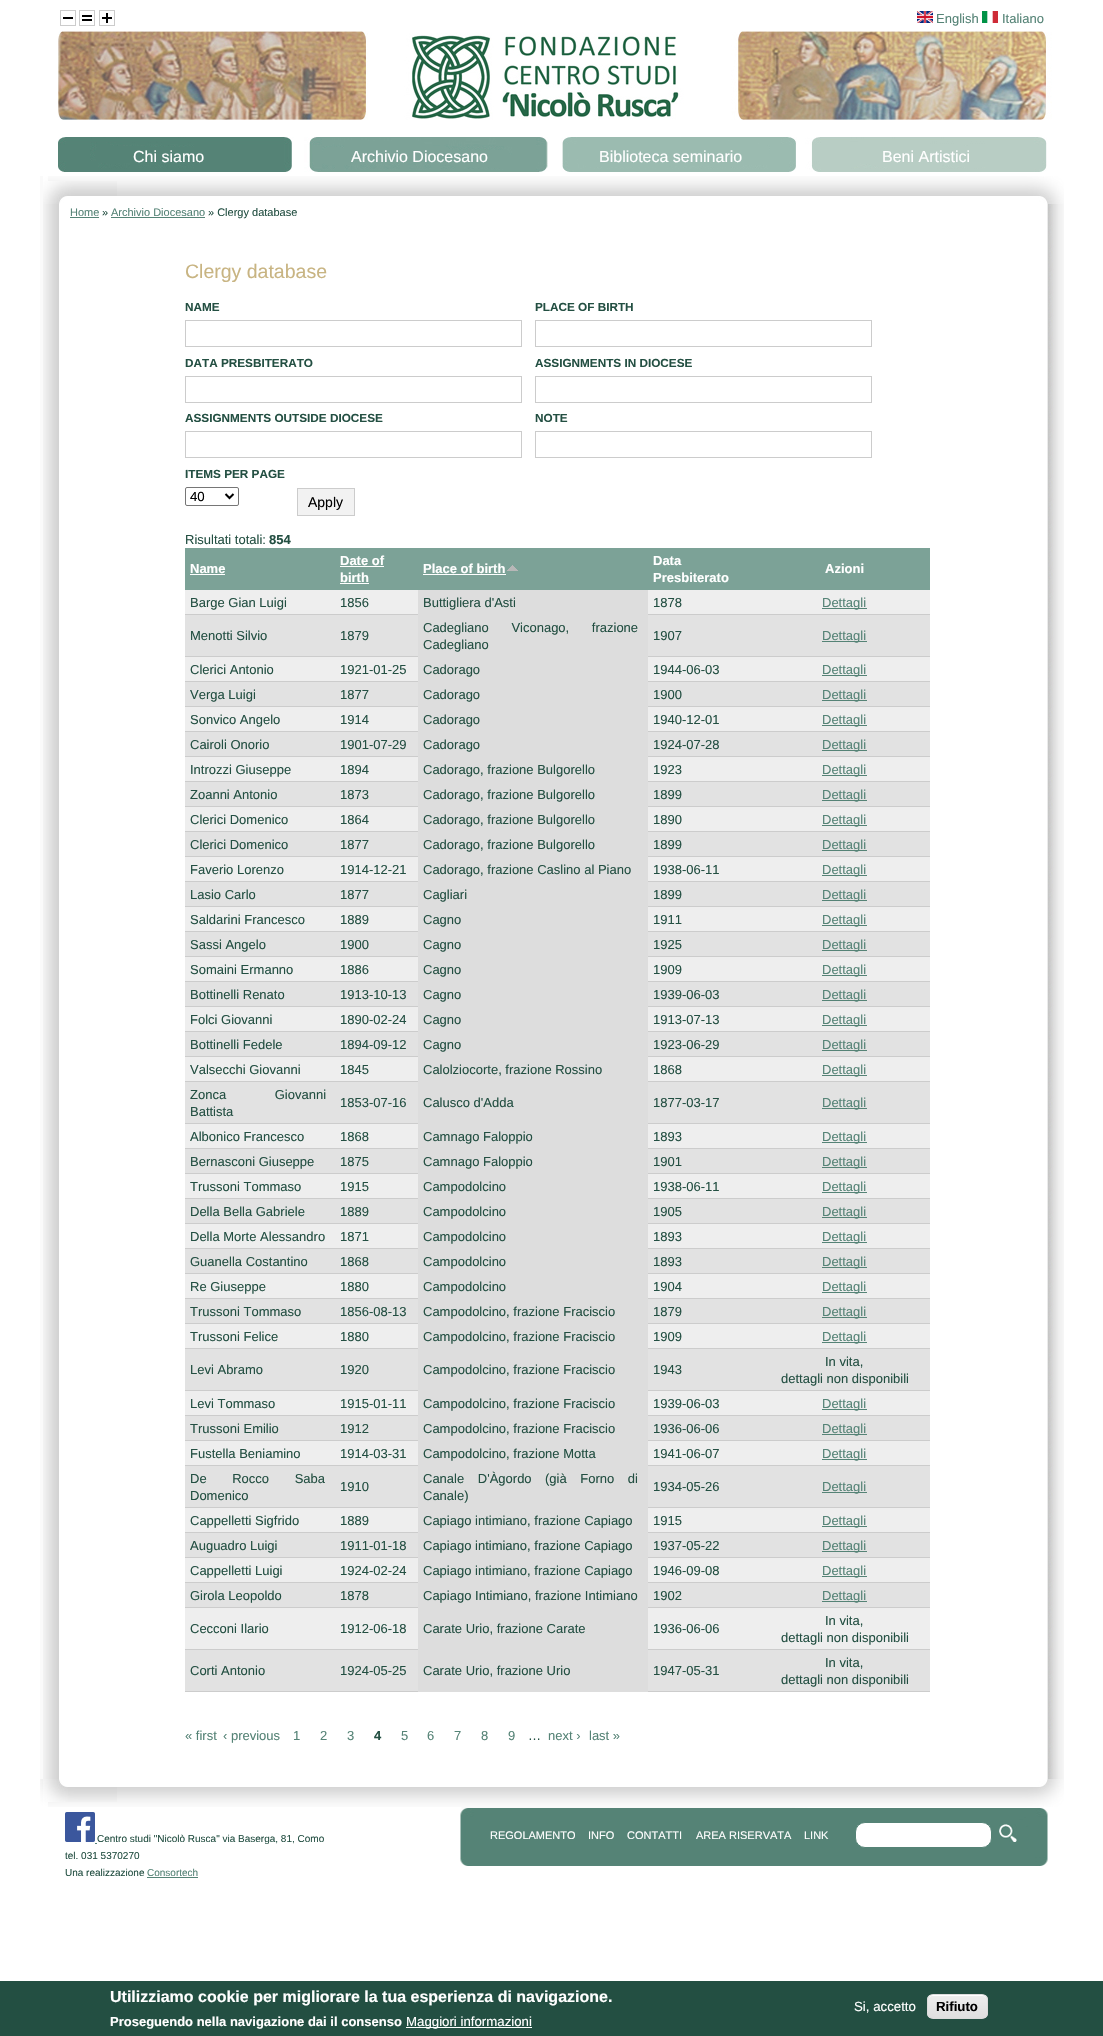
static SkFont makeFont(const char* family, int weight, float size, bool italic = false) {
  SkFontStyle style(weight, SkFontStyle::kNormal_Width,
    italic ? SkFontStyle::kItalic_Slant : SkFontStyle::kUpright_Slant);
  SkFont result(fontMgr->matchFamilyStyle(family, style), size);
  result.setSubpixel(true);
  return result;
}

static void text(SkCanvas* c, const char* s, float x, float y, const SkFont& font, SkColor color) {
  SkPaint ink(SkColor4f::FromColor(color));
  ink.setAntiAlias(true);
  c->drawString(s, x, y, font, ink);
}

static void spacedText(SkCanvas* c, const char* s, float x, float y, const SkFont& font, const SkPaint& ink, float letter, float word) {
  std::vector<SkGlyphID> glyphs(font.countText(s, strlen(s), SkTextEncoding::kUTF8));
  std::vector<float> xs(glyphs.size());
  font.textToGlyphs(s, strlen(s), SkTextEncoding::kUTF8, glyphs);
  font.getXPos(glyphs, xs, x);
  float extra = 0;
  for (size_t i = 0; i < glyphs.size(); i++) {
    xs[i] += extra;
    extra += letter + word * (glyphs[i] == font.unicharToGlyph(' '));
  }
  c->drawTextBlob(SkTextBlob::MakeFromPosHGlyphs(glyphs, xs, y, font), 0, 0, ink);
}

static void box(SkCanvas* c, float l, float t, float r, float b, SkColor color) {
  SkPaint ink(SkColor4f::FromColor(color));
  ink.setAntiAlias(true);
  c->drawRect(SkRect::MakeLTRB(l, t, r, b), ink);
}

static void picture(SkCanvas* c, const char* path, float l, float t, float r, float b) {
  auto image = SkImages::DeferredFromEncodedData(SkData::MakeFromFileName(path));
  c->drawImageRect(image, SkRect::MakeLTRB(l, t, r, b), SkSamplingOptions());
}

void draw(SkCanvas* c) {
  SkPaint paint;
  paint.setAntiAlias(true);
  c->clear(0xffffffff);
  picture(c, "img_01.png", 58, 31, 1052, 120);
  picture(c, "img_02.png", 60, 10, 76, 26);
  picture(c, "img_03.png", 79, 10, 95, 26);
  picture(c, "img_04.png", 99, 10, 115, 26);
  picture(c, "img_05.png", 917, 11, 933, 23);
  SkFont face1 = makeFont("Liberation Sans", 400, 13);
  text(c, "English", 936, 23, face1, 0xff558376);
  picture(c, "img_06.png", 982, 11, 998, 23);
  text(c, "Italiano", 1002, 23, face1, 0xff558376);
  picture(c, "img_07.png", 58, 137, 1047, 172);
  SkFont face2 = makeFont("Liberation Sans", 400, 16);
  text(c, "Chi siamo", 133, 162, face2, 0xffffffff);
  text(c, "Archivio Diocesano", 351, 162, face2, 0xffffffff);
  text(c, "Biblioteca seminario", 599, 162, face2, 0xffffffff);
  text(c, "Beni Artistici", 882, 162, face2, 0xffffffff);
  picture(c, "img_08.png", 40, 176, 1064, 204);
  picture(c, "img_09.png", 40, 204, 1064, 1779);
  SkFont face3 = makeFont("Liberation Sans", 400, 11);
  text(c, "Home", 70, 216, face3, 0xff558376);
  box(c, 70, 217, 99, 218, 0xff558376);
  text(c, "»", 102, 216, face3, 0xff234f42);
  text(c, "Archivio Diocesano", 111, 216, face3, 0xff558376);
  box(c, 111, 217, 205, 218, 0xff558376);
  text(c, "» Clergy database", 208, 216, face3, 0xff234f42);
  SkFont face4 = makeFont("Liberation Sans", 400, 19.5f);
  text(c, "Clergy database", 185, 278, face4, 0xffc8b482);
  SkFont face5 = makeFont("Liberation Sans", 700, 11.75f);
  text(c, "NAME", 185, 311, face5, 0xff234f42);
  paint.setStyle(SkPaint::kStroke_Style);
  paint.setStrokeWidth(1);
  paint.setColor(0xffcccccc);
  c->drawRect(SkRect::MakeLTRB(185.5f, 320.5f, 521.5f, 346.5f), paint);
  text(c, "PLACE OF BIRTH", 535, 311, face5, 0xff234f42);
  c->drawRect(SkRect::MakeLTRB(535.5f, 320.5f, 871.5f, 346.5f), paint);
  text(c, "DATA PRESBITERATO", 185, 367, face5, 0xff234f42);
  c->drawRect(SkRect::MakeLTRB(185.5f, 376.5f, 521.5f, 402.5f), paint);
  text(c, "ASSIGNMENTS IN DIOCESE", 535, 367, face5, 0xff234f42);
  c->drawRect(SkRect::MakeLTRB(535.5f, 376.5f, 871.5f, 402.5f), paint);
  text(c, "ASSIGNMENTS OUTSIDE DIOCESE", 185, 422, face5, 0xff234f42);
  c->drawRect(SkRect::MakeLTRB(185.5f, 431.5f, 521.5f, 457.5f), paint);
  text(c, "NOTE", 535, 422, face5, 0xff234f42);
  c->drawRect(SkRect::MakeLTRB(535.5f, 431.5f, 871.5f, 457.5f), paint);
  text(c, "ITEMS PER PAGE", 185, 478, face5, 0xff234f42);
  paint.setColor(0xff767676);
  c->drawRoundRect(SkRect::MakeLTRB(185.5f, 487.5f, 238.5f, 505.5f), 1.5f, 1.5f, paint);
  paint.setStrokeWidth(2);
  paint.setColor(0xff000000);
  c->drawPath(SkPathBuilder().moveTo(225.5f, 494).lineTo(229.5f, 498).lineTo(233.5f, 494).detach(), paint);
  SkFont face6 = makeFont("Liberation Sans", 400, 13.25f);
  text(c, "40", 190, 501, face6, 0xff000000);
  paint.setStyle(SkPaint::kFill_Style);
  paint.setColor(0xfff2f2f2);
  c->drawRect(SkRect::MakeLTRB(297.5f, 488.5f, 354.5f, 515.5f), paint);
  paint.setStyle(SkPaint::kStroke_Style);
  paint.setStrokeWidth(1);
  paint.setColor(0xffcccccc);
  c->drawRect(SkRect::MakeLTRB(297.5f, 488.5f, 354.5f, 515.5f), paint);
  SkFont face7 = makeFont("Liberation Sans", 400, 14);
  text(c, "Apply", 308, 507, face7, 0xff000000);
  text(c, "Risultati totali:", 185, 544, face1, 0xff234f42);
  SkFont face8 = makeFont("Liberation Sans", 700, 13);
  text(c, "854", 269, 544, face8, 0xff234f42);
  box(c, 185, 548, 930, 590, 0xff7ca297);
  text(c, "Name", 190, 573, face8, 0xffffffff);
  box(c, 190, 574, 225, 575, 0xffffffff);
  text(c, "Date of", 340, 565, face8, 0xffffffff);
  box(c, 340, 566, 384, 567, 0xffffffff);
  text(c, "birth", 340, 582, face8, 0xffffffff);
  box(c, 340, 583, 369, 584, 0xffffffff);
  text(c, "Place of birth", 423, 573, face8, 0xffffffff);
  box(c, 423, 574, 506, 575, 0xffffffff);
  picture(c, "img_10.png", 507, 565, 518, 571);
  text(c, "Data", 653, 565, face8, 0xffffffff);
  text(c, "Presbiterato", 653, 582, face8, 0xffffffff);
  text(c, "Azioni", 825, 573, face8, 0xffffffff);
  box(c, 185, 590, 930, 614, 0xffeeeeee);
  box(c, 185, 614, 930, 615, 0xffcccccc);
  text(c, "Barge Gian Luigi", 190, 607, face1, 0xff234f42);
  text(c, "1856", 340, 607, face1, 0xff234f42);
  box(c, 418, 590, 648, 615, 0xffdddddd);
  text(c, "Buttigliera d'Asti", 423, 607, face1, 0xff234f42);
  text(c, "1878", 653, 607, face1, 0xff234f42);
  box(c, 822, 608, 867, 609, 0xff558376);
  text(c, "Dettagli", 822, 607, face1, 0xff558376);
  box(c, 185, 615, 930, 656, 0xffe2e2e2);
  box(c, 185, 656, 930, 657, 0xffcccccc);
  text(c, "Menotti Silvio", 190, 640, face1, 0xff234f42);
  text(c, "1879", 340, 640, face1, 0xff234f42);
  box(c, 418, 615, 648, 657, 0xffdddddd);
  paint.setStyle(SkPaint::kFill_Style);
  paint.setColor(0xff234f42);
  spacedText(c, "Cadegliano Viconago, frazione", 423, 632, face1, paint, 0, 19);
  text(c, "Cadegliano", 423, 649, face1, 0xff234f42);
  text(c, "1907", 653, 640, face1, 0xff234f42);
  box(c, 822, 641, 867, 642, 0xff558376);
  text(c, "Dettagli", 822, 640, face1, 0xff558376);
  box(c, 185, 657, 930, 681, 0xffeeeeee);
  box(c, 185, 681, 930, 682, 0xffcccccc);
  text(c, "Clerici Antonio", 190, 674, face1, 0xff234f42);
  text(c, "1921-01-25", 340, 674, face1, 0xff234f42);
  box(c, 418, 657, 648, 682, 0xffdddddd);
  text(c, "Cadorago", 423, 674, face1, 0xff234f42);
  text(c, "1944-06-03", 653, 674, face1, 0xff234f42);
  box(c, 822, 675, 867, 676, 0xff558376);
  text(c, "Dettagli", 822, 674, face1, 0xff558376);
  box(c, 185, 682, 930, 706, 0xffe2e2e2);
  box(c, 185, 706, 930, 707, 0xffcccccc);
  text(c, "Verga Luigi", 190, 699, face1, 0xff234f42);
  text(c, "1877", 340, 699, face1, 0xff234f42);
  box(c, 418, 682, 648, 707, 0xffdddddd);
  text(c, "Cadorago", 423, 699, face1, 0xff234f42);
  text(c, "1900", 653, 699, face1, 0xff234f42);
  box(c, 822, 700, 867, 701, 0xff558376);
  text(c, "Dettagli", 822, 699, face1, 0xff558376);
  box(c, 185, 707, 930, 731, 0xffeeeeee);
  box(c, 185, 731, 930, 732, 0xffcccccc);
  text(c, "Sonvico Angelo", 190, 724, face1, 0xff234f42);
  text(c, "1914", 340, 724, face1, 0xff234f42);
  box(c, 418, 707, 648, 732, 0xffdddddd);
  text(c, "Cadorago", 423, 724, face1, 0xff234f42);
  text(c, "1940-12-01", 653, 724, face1, 0xff234f42);
  box(c, 822, 725, 867, 726, 0xff558376);
  text(c, "Dettagli", 822, 724, face1, 0xff558376);
  box(c, 185, 732, 930, 756, 0xffe2e2e2);
  box(c, 185, 756, 930, 757, 0xffcccccc);
  text(c, "Cairoli Onorio", 190, 749, face1, 0xff234f42);
  text(c, "1901-07-29", 340, 749, face1, 0xff234f42);
  box(c, 418, 732, 648, 757, 0xffdddddd);
  text(c, "Cadorago", 423, 749, face1, 0xff234f42);
  text(c, "1924-07-28", 653, 749, face1, 0xff234f42);
  box(c, 822, 750, 867, 751, 0xff558376);
  text(c, "Dettagli", 822, 749, face1, 0xff558376);
  box(c, 185, 757, 930, 781, 0xffeeeeee);
  box(c, 185, 781, 930, 782, 0xffcccccc);
  text(c, "Introzzi Giuseppe", 190, 774, face1, 0xff234f42);
  text(c, "1894", 340, 774, face1, 0xff234f42);
  box(c, 418, 757, 648, 782, 0xffdddddd);
  text(c, "Cadorago, frazione Bulgorello", 423, 774, face1, 0xff234f42);
  text(c, "1923", 653, 774, face1, 0xff234f42);
  box(c, 822, 775, 867, 776, 0xff558376);
  text(c, "Dettagli", 822, 774, face1, 0xff558376);
  box(c, 185, 782, 930, 806, 0xffe2e2e2);
  box(c, 185, 806, 930, 807, 0xffcccccc);
  text(c, "Zoanni Antonio", 190, 799, face1, 0xff234f42);
  text(c, "1873", 340, 799, face1, 0xff234f42);
  box(c, 418, 782, 648, 807, 0xffdddddd);
  text(c, "Cadorago, frazione Bulgorello", 423, 799, face1, 0xff234f42);
  text(c, "1899", 653, 799, face1, 0xff234f42);
  box(c, 822, 800, 867, 801, 0xff558376);
  text(c, "Dettagli", 822, 799, face1, 0xff558376);
  box(c, 185, 807, 930, 831, 0xffeeeeee);
  box(c, 185, 831, 930, 832, 0xffcccccc);
  text(c, "Clerici Domenico", 190, 824, face1, 0xff234f42);
  text(c, "1864", 340, 824, face1, 0xff234f42);
  box(c, 418, 807, 648, 832, 0xffdddddd);
  text(c, "Cadorago, frazione Bulgorello", 423, 824, face1, 0xff234f42);
  text(c, "1890", 653, 824, face1, 0xff234f42);
  box(c, 822, 825, 867, 826, 0xff558376);
  text(c, "Dettagli", 822, 824, face1, 0xff558376);
  box(c, 185, 832, 930, 856, 0xffe2e2e2);
  box(c, 185, 856, 930, 857, 0xffcccccc);
  text(c, "Clerici Domenico", 190, 849, face1, 0xff234f42);
  text(c, "1877", 340, 849, face1, 0xff234f42);
  box(c, 418, 832, 648, 857, 0xffdddddd);
  text(c, "Cadorago, frazione Bulgorello", 423, 849, face1, 0xff234f42);
  text(c, "1899", 653, 849, face1, 0xff234f42);
  box(c, 822, 850, 867, 851, 0xff558376);
  text(c, "Dettagli", 822, 849, face1, 0xff558376);
  box(c, 185, 857, 930, 881, 0xffeeeeee);
  box(c, 185, 881, 930, 882, 0xffcccccc);
  text(c, "Faverio Lorenzo", 190, 874, face1, 0xff234f42);
  text(c, "1914-12-21", 340, 874, face1, 0xff234f42);
  box(c, 418, 857, 648, 882, 0xffdddddd);
  text(c, "Cadorago, frazione Caslino al Piano", 423, 874, face1, 0xff234f42);
  text(c, "1938-06-11", 653, 874, face1, 0xff234f42);
  box(c, 822, 875, 867, 876, 0xff558376);
  text(c, "Dettagli", 822, 874, face1, 0xff558376);
  box(c, 185, 882, 930, 906, 0xffe2e2e2);
  box(c, 185, 906, 930, 907, 0xffcccccc);
  text(c, "Lasio Carlo", 190, 899, face1, 0xff234f42);
  text(c, "1877", 340, 899, face1, 0xff234f42);
  box(c, 418, 882, 648, 907, 0xffdddddd);
  text(c, "Cagliari", 423, 899, face1, 0xff234f42);
  text(c, "1899", 653, 899, face1, 0xff234f42);
  box(c, 822, 900, 867, 901, 0xff558376);
  text(c, "Dettagli", 822, 899, face1, 0xff558376);
  box(c, 185, 907, 930, 931, 0xffeeeeee);
  box(c, 185, 931, 930, 932, 0xffcccccc);
  text(c, "Saldarini Francesco", 190, 924, face1, 0xff234f42);
  text(c, "1889", 340, 924, face1, 0xff234f42);
  box(c, 418, 907, 648, 932, 0xffdddddd);
  text(c, "Cagno", 423, 924, face1, 0xff234f42);
  text(c, "1911", 653, 924, face1, 0xff234f42);
  box(c, 822, 925, 867, 926, 0xff558376);
  text(c, "Dettagli", 822, 924, face1, 0xff558376);
  box(c, 185, 932, 930, 956, 0xffe2e2e2);
  box(c, 185, 956, 930, 957, 0xffcccccc);
  text(c, "Sassi Angelo", 190, 949, face1, 0xff234f42);
  text(c, "1900", 340, 949, face1, 0xff234f42);
  box(c, 418, 932, 648, 957, 0xffdddddd);
  text(c, "Cagno", 423, 949, face1, 0xff234f42);
  text(c, "1925", 653, 949, face1, 0xff234f42);
  box(c, 822, 950, 867, 951, 0xff558376);
  text(c, "Dettagli", 822, 949, face1, 0xff558376);
  box(c, 185, 957, 930, 981, 0xffeeeeee);
  box(c, 185, 981, 930, 982, 0xffcccccc);
  text(c, "Somaini Ermanno", 190, 974, face1, 0xff234f42);
  text(c, "1886", 340, 974, face1, 0xff234f42);
  box(c, 418, 957, 648, 982, 0xffdddddd);
  text(c, "Cagno", 423, 974, face1, 0xff234f42);
  text(c, "1909", 653, 974, face1, 0xff234f42);
  box(c, 822, 975, 867, 976, 0xff558376);
  text(c, "Dettagli", 822, 974, face1, 0xff558376);
  box(c, 185, 982, 930, 1006, 0xffe2e2e2);
  box(c, 185, 1006, 930, 1007, 0xffcccccc);
  text(c, "Bottinelli Renato", 190, 999, face1, 0xff234f42);
  text(c, "1913-10-13", 340, 999, face1, 0xff234f42);
  box(c, 418, 982, 648, 1007, 0xffdddddd);
  text(c, "Cagno", 423, 999, face1, 0xff234f42);
  text(c, "1939-06-03", 653, 999, face1, 0xff234f42);
  box(c, 822, 1000, 867, 1001, 0xff558376);
  text(c, "Dettagli", 822, 999, face1, 0xff558376);
  box(c, 185, 1007, 930, 1031, 0xffeeeeee);
  box(c, 185, 1031, 930, 1032, 0xffcccccc);
  text(c, "Folci Giovanni", 190, 1024, face1, 0xff234f42);
  text(c, "1890-02-24", 340, 1024, face1, 0xff234f42);
  box(c, 418, 1007, 648, 1032, 0xffdddddd);
  text(c, "Cagno", 423, 1024, face1, 0xff234f42);
  text(c, "1913-07-13", 653, 1024, face1, 0xff234f42);
  box(c, 822, 1025, 867, 1026, 0xff558376);
  text(c, "Dettagli", 822, 1024, face1, 0xff558376);
  box(c, 185, 1032, 930, 1056, 0xffe2e2e2);
  box(c, 185, 1056, 930, 1057, 0xffcccccc);
  text(c, "Bottinelli Fedele", 190, 1049, face1, 0xff234f42);
  text(c, "1894-09-12", 340, 1049, face1, 0xff234f42);
  box(c, 418, 1032, 648, 1057, 0xffdddddd);
  text(c, "Cagno", 423, 1049, face1, 0xff234f42);
  text(c, "1923-06-29", 653, 1049, face1, 0xff234f42);
  box(c, 822, 1050, 867, 1051, 0xff558376);
  text(c, "Dettagli", 822, 1049, face1, 0xff558376);
  box(c, 185, 1057, 930, 1081, 0xffeeeeee);
  box(c, 185, 1081, 930, 1082, 0xffcccccc);
  text(c, "Valsecchi Giovanni", 190, 1074, face1, 0xff234f42);
  text(c, "1845", 340, 1074, face1, 0xff234f42);
  box(c, 418, 1057, 648, 1082, 0xffdddddd);
  text(c, "Calolziocorte, frazione Rossino", 423, 1074, face1, 0xff234f42);
  text(c, "1868", 653, 1074, face1, 0xff234f42);
  box(c, 822, 1075, 867, 1076, 0xff558376);
  text(c, "Dettagli", 822, 1074, face1, 0xff558376);
  box(c, 185, 1082, 930, 1123, 0xffe2e2e2);
  box(c, 185, 1123, 930, 1124, 0xffcccccc);
  spacedText(c, "Zonca Giovanni", 190, 1099, face1, paint, 0, 45);
  text(c, "Battista", 190, 1116, face1, 0xff234f42);
  text(c, "1853-07-16", 340, 1107, face1, 0xff234f42);
  box(c, 418, 1082, 648, 1124, 0xffdddddd);
  text(c, "Calusco d'Adda", 423, 1107, face1, 0xff234f42);
  text(c, "1877-03-17", 653, 1107, face1, 0xff234f42);
  box(c, 822, 1108, 867, 1109, 0xff558376);
  text(c, "Dettagli", 822, 1107, face1, 0xff558376);
  box(c, 185, 1124, 930, 1148, 0xffeeeeee);
  box(c, 185, 1148, 930, 1149, 0xffcccccc);
  text(c, "Albonico Francesco", 190, 1141, face1, 0xff234f42);
  text(c, "1868", 340, 1141, face1, 0xff234f42);
  box(c, 418, 1124, 648, 1149, 0xffdddddd);
  text(c, "Camnago Faloppio", 423, 1141, face1, 0xff234f42);
  text(c, "1893", 653, 1141, face1, 0xff234f42);
  box(c, 822, 1142, 867, 1143, 0xff558376);
  text(c, "Dettagli", 822, 1141, face1, 0xff558376);
  box(c, 185, 1149, 930, 1173, 0xffe2e2e2);
  box(c, 185, 1173, 930, 1174, 0xffcccccc);
  text(c, "Bernasconi Giuseppe", 190, 1166, face1, 0xff234f42);
  text(c, "1875", 340, 1166, face1, 0xff234f42);
  box(c, 418, 1149, 648, 1174, 0xffdddddd);
  text(c, "Camnago Faloppio", 423, 1166, face1, 0xff234f42);
  text(c, "1901", 653, 1166, face1, 0xff234f42);
  box(c, 822, 1167, 867, 1168, 0xff558376);
  text(c, "Dettagli", 822, 1166, face1, 0xff558376);
  box(c, 185, 1174, 930, 1198, 0xffeeeeee);
  box(c, 185, 1198, 930, 1199, 0xffcccccc);
  text(c, "Trussoni Tommaso", 190, 1191, face1, 0xff234f42);
  text(c, "1915", 340, 1191, face1, 0xff234f42);
  box(c, 418, 1174, 648, 1199, 0xffdddddd);
  text(c, "Campodolcino", 423, 1191, face1, 0xff234f42);
  text(c, "1938-06-11", 653, 1191, face1, 0xff234f42);
  box(c, 822, 1192, 867, 1193, 0xff558376);
  text(c, "Dettagli", 822, 1191, face1, 0xff558376);
  box(c, 185, 1199, 930, 1223, 0xffe2e2e2);
  box(c, 185, 1223, 930, 1224, 0xffcccccc);
  text(c, "Della Bella Gabriele", 190, 1216, face1, 0xff234f42);
  text(c, "1889", 340, 1216, face1, 0xff234f42);
  box(c, 418, 1199, 648, 1224, 0xffdddddd);
  text(c, "Campodolcino", 423, 1216, face1, 0xff234f42);
  text(c, "1905", 653, 1216, face1, 0xff234f42);
  box(c, 822, 1217, 867, 1218, 0xff558376);
  text(c, "Dettagli", 822, 1216, face1, 0xff558376);
  box(c, 185, 1224, 930, 1248, 0xffeeeeee);
  box(c, 185, 1248, 930, 1249, 0xffcccccc);
  text(c, "Della Morte Alessandro", 190, 1241, face1, 0xff234f42);
  text(c, "1871", 340, 1241, face1, 0xff234f42);
  box(c, 418, 1224, 648, 1249, 0xffdddddd);
  text(c, "Campodolcino", 423, 1241, face1, 0xff234f42);
  text(c, "1893", 653, 1241, face1, 0xff234f42);
  box(c, 822, 1242, 867, 1243, 0xff558376);
  text(c, "Dettagli", 822, 1241, face1, 0xff558376);
  box(c, 185, 1249, 930, 1273, 0xffe2e2e2);
  box(c, 185, 1273, 930, 1274, 0xffcccccc);
  text(c, "Guanella Costantino", 190, 1266, face1, 0xff234f42);
  text(c, "1868", 340, 1266, face1, 0xff234f42);
  box(c, 418, 1249, 648, 1274, 0xffdddddd);
  text(c, "Campodolcino", 423, 1266, face1, 0xff234f42);
  text(c, "1893", 653, 1266, face1, 0xff234f42);
  box(c, 822, 1267, 867, 1268, 0xff558376);
  text(c, "Dettagli", 822, 1266, face1, 0xff558376);
  box(c, 185, 1274, 930, 1298, 0xffeeeeee);
  box(c, 185, 1298, 930, 1299, 0xffcccccc);
  text(c, "Re Giuseppe", 190, 1291, face1, 0xff234f42);
  text(c, "1880", 340, 1291, face1, 0xff234f42);
  box(c, 418, 1274, 648, 1299, 0xffdddddd);
  text(c, "Campodolcino", 423, 1291, face1, 0xff234f42);
  text(c, "1904", 653, 1291, face1, 0xff234f42);
  box(c, 822, 1292, 867, 1293, 0xff558376);
  text(c, "Dettagli", 822, 1291, face1, 0xff558376);
  box(c, 185, 1299, 930, 1323, 0xffe2e2e2);
  box(c, 185, 1323, 930, 1324, 0xffcccccc);
  text(c, "Trussoni Tommaso", 190, 1316, face1, 0xff234f42);
  text(c, "1856-08-13", 340, 1316, face1, 0xff234f42);
  box(c, 418, 1299, 648, 1324, 0xffdddddd);
  text(c, "Campodolcino, frazione Fraciscio", 423, 1316, face1, 0xff234f42);
  text(c, "1879", 653, 1316, face1, 0xff234f42);
  box(c, 822, 1317, 867, 1318, 0xff558376);
  text(c, "Dettagli", 822, 1316, face1, 0xff558376);
  box(c, 185, 1324, 930, 1348, 0xffeeeeee);
  box(c, 185, 1348, 930, 1349, 0xffcccccc);
  text(c, "Trussoni Felice", 190, 1341, face1, 0xff234f42);
  text(c, "1880", 340, 1341, face1, 0xff234f42);
  box(c, 418, 1324, 648, 1349, 0xffdddddd);
  text(c, "Campodolcino, frazione Fraciscio", 423, 1341, face1, 0xff234f42);
  text(c, "1909", 653, 1341, face1, 0xff234f42);
  box(c, 822, 1342, 867, 1343, 0xff558376);
  text(c, "Dettagli", 822, 1341, face1, 0xff558376);
  box(c, 185, 1349, 930, 1390, 0xffe2e2e2);
  box(c, 185, 1390, 930, 1391, 0xffcccccc);
  text(c, "Levi Abramo", 190, 1374, face1, 0xff234f42);
  text(c, "1920", 340, 1374, face1, 0xff234f42);
  box(c, 418, 1349, 648, 1391, 0xffdddddd);
  text(c, "Campodolcino, frazione Fraciscio", 423, 1374, face1, 0xff234f42);
  text(c, "1943", 653, 1374, face1, 0xff234f42);
  text(c, "In vita,", 825, 1366, face1, 0xff234f42);
  text(c, "dettagli non disponibili", 781, 1383, face1, 0xff234f42);
  box(c, 185, 1391, 930, 1415, 0xffeeeeee);
  box(c, 185, 1415, 930, 1416, 0xffcccccc);
  text(c, "Levi Tommaso", 190, 1408, face1, 0xff234f42);
  text(c, "1915-01-11", 340, 1408, face1, 0xff234f42);
  box(c, 418, 1391, 648, 1416, 0xffdddddd);
  text(c, "Campodolcino, frazione Fraciscio", 423, 1408, face1, 0xff234f42);
  text(c, "1939-06-03", 653, 1408, face1, 0xff234f42);
  box(c, 822, 1409, 867, 1410, 0xff558376);
  text(c, "Dettagli", 822, 1408, face1, 0xff558376);
  box(c, 185, 1416, 930, 1440, 0xffe2e2e2);
  box(c, 185, 1440, 930, 1441, 0xffcccccc);
  text(c, "Trussoni Emilio", 190, 1433, face1, 0xff234f42);
  text(c, "1912", 340, 1433, face1, 0xff234f42);
  box(c, 418, 1416, 648, 1441, 0xffdddddd);
  text(c, "Campodolcino, frazione Fraciscio", 423, 1433, face1, 0xff234f42);
  text(c, "1936-06-06", 653, 1433, face1, 0xff234f42);
  box(c, 822, 1434, 867, 1435, 0xff558376);
  text(c, "Dettagli", 822, 1433, face1, 0xff558376);
  box(c, 185, 1441, 930, 1465, 0xffeeeeee);
  box(c, 185, 1465, 930, 1466, 0xffcccccc);
  text(c, "Fustella Beniamino", 190, 1458, face1, 0xff234f42);
  text(c, "1914-03-31", 340, 1458, face1, 0xff234f42);
  box(c, 418, 1441, 648, 1466, 0xffdddddd);
  text(c, "Campodolcino, frazione Motta", 423, 1458, face1, 0xff234f42);
  text(c, "1941-06-07", 653, 1458, face1, 0xff234f42);
  box(c, 822, 1459, 867, 1460, 0xff558376);
  text(c, "Dettagli", 822, 1458, face1, 0xff558376);
  box(c, 185, 1466, 930, 1507, 0xffe2e2e2);
  box(c, 185, 1507, 930, 1508, 0xffcccccc);
  spacedText(c, "De Rocco Saba", 190, 1483, face1, paint, 0, 22);
  text(c, "Domenico", 190, 1500, face1, 0xff234f42);
  text(c, "1910", 340, 1491, face1, 0xff234f42);
  box(c, 418, 1466, 648, 1508, 0xffdddddd);
  spacedText(c, "Canale D'Àgordo", 423, 1483, face1, paint, 0, 10);
  spacedText(c, "(già Forno di", 545, 1483, face1, paint, 0, 10);
  text(c, "Canale)", 423, 1500, face1, 0xff234f42);
  text(c, "1934-05-26", 653, 1491, face1, 0xff234f42);
  box(c, 822, 1492, 867, 1493, 0xff558376);
  text(c, "Dettagli", 822, 1491, face1, 0xff558376);
  box(c, 185, 1508, 930, 1532, 0xffeeeeee);
  box(c, 185, 1532, 930, 1533, 0xffcccccc);
  text(c, "Cappelletti Sigfrido", 190, 1525, face1, 0xff234f42);
  text(c, "1889", 340, 1525, face1, 0xff234f42);
  box(c, 418, 1508, 648, 1533, 0xffdddddd);
  text(c, "Capiago intimiano, frazione Capiago", 423, 1525, face1, 0xff234f42);
  text(c, "1915", 653, 1525, face1, 0xff234f42);
  box(c, 822, 1526, 867, 1527, 0xff558376);
  text(c, "Dettagli", 822, 1525, face1, 0xff558376);
  box(c, 185, 1533, 930, 1557, 0xffe2e2e2);
  box(c, 185, 1557, 930, 1558, 0xffcccccc);
  text(c, "Auguadro Luigi", 190, 1550, face1, 0xff234f42);
  text(c, "1911-01-18", 340, 1550, face1, 0xff234f42);
  box(c, 418, 1533, 648, 1558, 0xffdddddd);
  text(c, "Capiago intimiano, frazione Capiago", 423, 1550, face1, 0xff234f42);
  text(c, "1937-05-22", 653, 1550, face1, 0xff234f42);
  box(c, 822, 1551, 867, 1552, 0xff558376);
  text(c, "Dettagli", 822, 1550, face1, 0xff558376);
  box(c, 185, 1558, 930, 1582, 0xffeeeeee);
  box(c, 185, 1582, 930, 1583, 0xffcccccc);
  text(c, "Cappelletti Luigi", 190, 1575, face1, 0xff234f42);
  text(c, "1924-02-24", 340, 1575, face1, 0xff234f42);
  box(c, 418, 1558, 648, 1583, 0xffdddddd);
  text(c, "Capiago intimiano, frazione Capiago", 423, 1575, face1, 0xff234f42);
  text(c, "1946-09-08", 653, 1575, face1, 0xff234f42);
  box(c, 822, 1576, 867, 1577, 0xff558376);
  text(c, "Dettagli", 822, 1575, face1, 0xff558376);
  box(c, 185, 1583, 930, 1607, 0xffe2e2e2);
  box(c, 185, 1607, 930, 1608, 0xffcccccc);
  text(c, "Girola Leopoldo", 190, 1600, face1, 0xff234f42);
  text(c, "1878", 340, 1600, face1, 0xff234f42);
  box(c, 418, 1583, 648, 1608, 0xffdddddd);
  text(c, "Capiago Intimiano, frazione Intimiano", 423, 1600, face1, 0xff234f42);
  text(c, "1902", 653, 1600, face1, 0xff234f42);
  box(c, 822, 1601, 867, 1602, 0xff558376);
  text(c, "Dettagli", 822, 1600, face1, 0xff558376);
  box(c, 185, 1608, 930, 1649, 0xffeeeeee);
  box(c, 185, 1649, 930, 1650, 0xffcccccc);
  text(c, "Cecconi Ilario", 190, 1633, face1, 0xff234f42);
  text(c, "1912-06-18", 340, 1633, face1, 0xff234f42);
  box(c, 418, 1608, 648, 1650, 0xffdddddd);
  text(c, "Carate Urio, frazione Carate", 423, 1633, face1, 0xff234f42);
  text(c, "1936-06-06", 653, 1633, face1, 0xff234f42);
  text(c, "In vita,", 825, 1625, face1, 0xff234f42);
  text(c, "dettagli non disponibili", 781, 1642, face1, 0xff234f42);
  box(c, 185, 1650, 930, 1691, 0xffe2e2e2);
  box(c, 185, 1691, 930, 1692, 0xffcccccc);
  text(c, "Corti Antonio", 190, 1675, face1, 0xff234f42);
  text(c, "1924-05-25", 340, 1675, face1, 0xff234f42);
  box(c, 418, 1650, 648, 1692, 0xffdddddd);
  text(c, "Carate Urio, frazione Urio", 423, 1675, face1, 0xff234f42);
  text(c, "1947-05-31", 653, 1675, face1, 0xff234f42);
  text(c, "In vita,", 825, 1667, face1, 0xff234f42);
  text(c, "dettagli non disponibili", 781, 1684, face1, 0xff234f42);
  text(c, "« first", 185, 1740, face1, 0xff558376);
  text(c, "‹ previous", 223, 1740, face1, 0xff558376);
  text(c, "1", 293, 1740, face1, 0xff558376);
  text(c, "2", 320, 1740, face1, 0xff558376);
  text(c, "3", 347, 1740, face1, 0xff558376);
  text(c, "4", 374, 1740, face8, 0xff234f42);
  text(c, "5", 401, 1740, face1, 0xff558376);
  text(c, "6", 427, 1740, face1, 0xff558376);
  text(c, "7", 454, 1740, face1, 0xff558376);
  text(c, "8", 481, 1740, face1, 0xff558376);
  text(c, "9", 508, 1740, face1, 0xff558376);
  text(c, "…", 528, 1740, face1, 0xff234f42);
  text(c, "next ›", 548, 1740, face1, 0xff558376);
  text(c, "last »", 589, 1740, face1, 0xff558376);
  picture(c, "img_11.png", 40, 1779, 1064, 1807);
  picture(c, "img_12.png", 460, 1807, 1048, 1866);
  picture(c, "img_13.png", 65, 1812, 95, 1842);
  box(c, 95, 1843, 97, 1844, 0xff558376);
  SkFont face9 = makeFont("Liberation Sans", 400, 10);
  text(c, "Centro studi \"Nicolò Rusca\" via Baserga, 81, Como", 97, 1842, face9, 0xff234f42);
  text(c, "tel. 031 5370270", 65, 1859, face9, 0xff234f42);
  text(c, "Una realizzazione", 65, 1876, face9, 0xff234f42);
  text(c, "Consortech", 147, 1876, face9, 0xff558376);
  box(c, 147, 1877, 198, 1878, 0xff558376);
  text(c, "REGOLAMENTO", 490, 1839, face3, 0xffffffff);
  text(c, "INFO", 588, 1839, face3, 0xffffffff);
  text(c, "CONTATTI", 627, 1839, face3, 0xffffffff);
  text(c, "AREA RISERVATA", 696, 1839, face3, 0xffffffff);
  text(c, "LINK", 804, 1839, face3, 0xffffffff);
  paint.setColor(0xffffffff);
  c->drawRoundRect(SkRect::MakeLTRB(855.5f, 1822.5f, 991.5f, 1847.5f), 9.5f, 9.5f, paint);
  paint.setStyle(SkPaint::kStroke_Style);
  paint.setColor(0xff558376);
  c->drawRoundRect(SkRect::MakeLTRB(855.5f, 1822.5f, 991.5f, 1847.5f), 9.5f, 9.5f, paint);
  picture(c, "img_14.png", 999, 1824, 1017, 1842);
  box(c, 0, 1981, 1103, 2036, 0xff234f42);
  SkFont face10 = makeFont("Liberation Sans", 700, 16);
  text(c, "Utilizziamo cookie per migliorare la tua esperienza di navigazione.", 110, 2002, face10, 0xffffffff);
  text(c, "Proseguendo nella navigazione dai il consenso", 110, 2026, face8, 0xffffffff);
  box(c, 406, 2027, 532, 2028, 0xffffffff);
  text(c, "Maggiori informazioni", 406, 2026, face6, 0xffffffff);
  text(c, "Si, accetto", 854, 2011, face6, 0xffffffff);
  c->save();
  c->clipPath(SkPathBuilder().moveTo(933, 1994).lineTo(982, 1994).cubicTo(985.5f, 1994, 988, 1996.5f, 988, 2000).lineTo(988, 2013).cubicTo(988, 2016.5f, 985.5f, 2019, 982, 2019).lineTo(933, 2019).cubicTo(929.5f, 2019, 927, 2016.5f, 927, 2013).lineTo(927, 2000).cubicTo(927, 1996.5f, 929.5f, 1994, 933, 1994).close().detach(), true);
  paint.setStyle(SkPaint::kFill_Style);
  {
    const SkColor colors[] = {0xffededed, 0xffdfdfdf};
    const float stops[] = {0.05f, 1};
    const SkPoint ends[] = {{958, 1995}, {958, 2018}};
    paint.setShader(SkGradientShader::MakeLinear(ends, colors, stops, 2, SkTileMode::kClamp));
    paint.setAlpha(255);
  }
  c->drawRect(SkRect::MakeLTRB(927, 1995, 988, 2018), paint);
  c->restore();
  paint.setShader(nullptr);
  paint.setColor(0xffffffff);
  c->drawPath(SkPathBuilder().moveTo(933, 1996).lineTo(982, 1996).cubicTo(985, 1996, 987, 1998, 987, 2001).cubicTo(987, 1993, 980, 1995, 974, 1995).lineTo(941, 1995).cubicTo(935, 1995, 928, 1993, 928, 2001).cubicTo(928, 1998, 930, 1996, 933, 1996).close().detach(), paint);
  paint.setStyle(SkPaint::kStroke_Style);
  paint.setColor(0xffdcdcdc);
  c->drawRoundRect(SkRect::MakeLTRB(927.5f, 1994.5f, 987.5f, 2018.5f), 5.5f, 5.5f, paint);
  SkFont face11 = makeFont("Liberation Sans", 700, 13.25f);
  text(c, "Rifiuto", 936, 2011, face11, 0xff000000);
}
